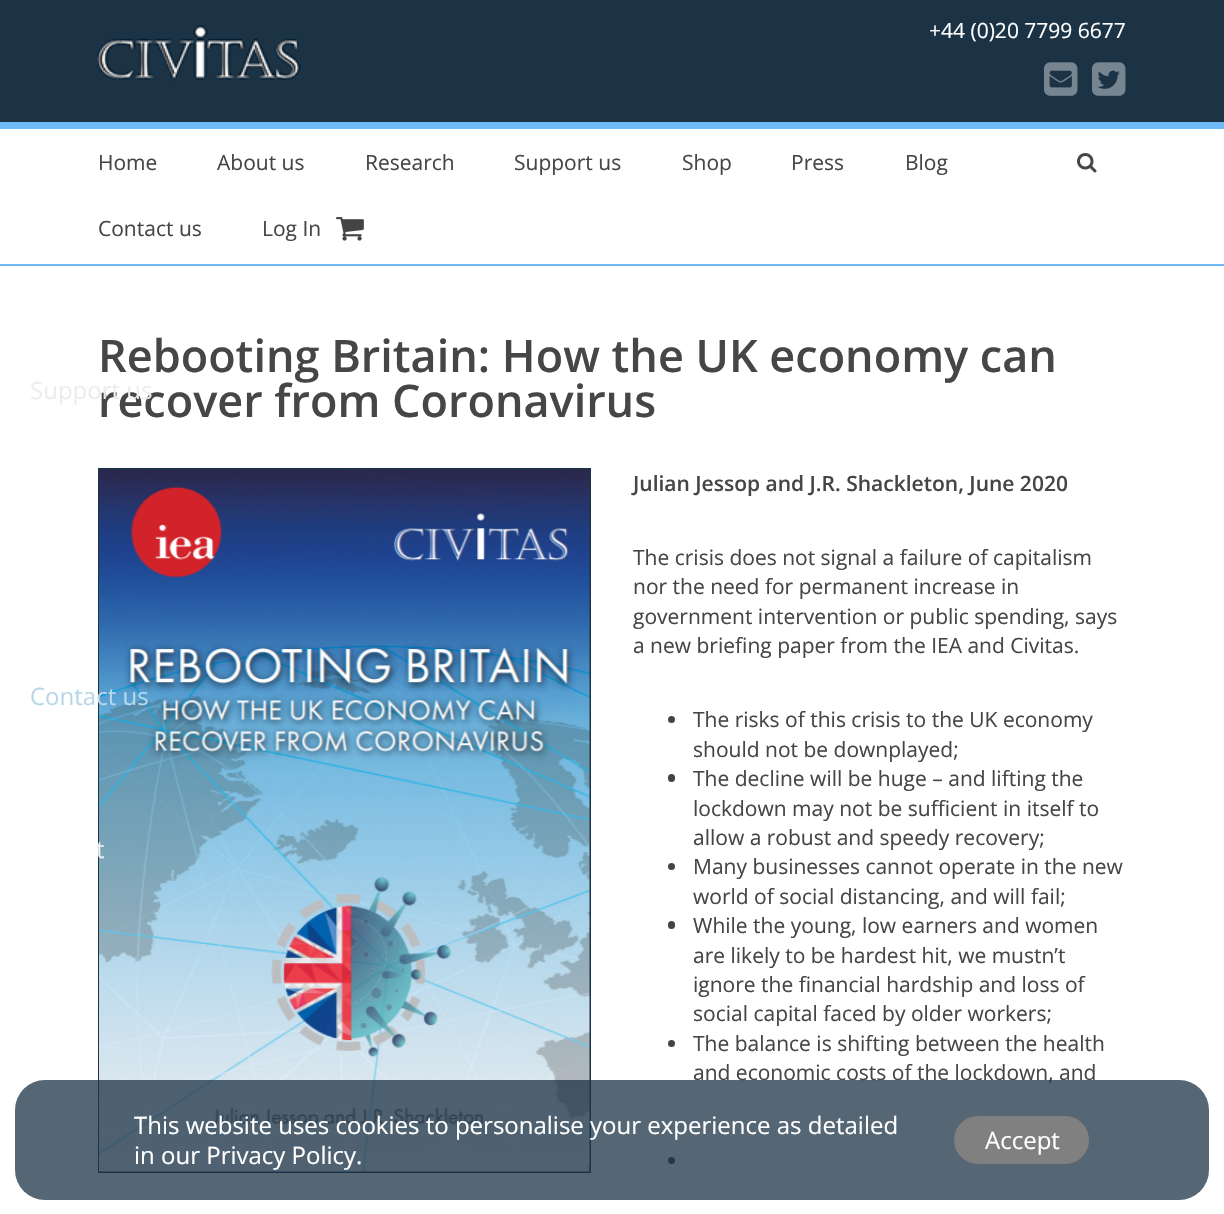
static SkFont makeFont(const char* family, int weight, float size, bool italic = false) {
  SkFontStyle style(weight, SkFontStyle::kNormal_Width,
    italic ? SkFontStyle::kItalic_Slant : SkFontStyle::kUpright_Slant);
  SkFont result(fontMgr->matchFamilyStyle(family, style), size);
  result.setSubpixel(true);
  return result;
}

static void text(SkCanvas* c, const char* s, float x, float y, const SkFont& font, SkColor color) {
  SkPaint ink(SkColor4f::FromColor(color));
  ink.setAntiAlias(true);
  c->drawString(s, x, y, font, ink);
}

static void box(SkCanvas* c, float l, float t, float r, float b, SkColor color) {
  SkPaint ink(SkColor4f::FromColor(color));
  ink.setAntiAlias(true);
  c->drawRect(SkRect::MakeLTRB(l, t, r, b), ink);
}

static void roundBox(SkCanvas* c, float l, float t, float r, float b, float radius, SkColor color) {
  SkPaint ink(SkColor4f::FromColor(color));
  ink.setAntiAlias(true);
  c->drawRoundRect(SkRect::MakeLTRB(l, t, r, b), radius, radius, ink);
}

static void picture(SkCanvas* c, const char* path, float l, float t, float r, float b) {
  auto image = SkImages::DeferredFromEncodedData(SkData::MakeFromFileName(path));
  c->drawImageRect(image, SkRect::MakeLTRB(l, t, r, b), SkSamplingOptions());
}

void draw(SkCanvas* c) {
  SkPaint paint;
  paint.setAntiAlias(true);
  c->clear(0xff1c3345);
  picture(c, "img_01.png", 97, 24, 301, 82);
  SkFont face1 = makeFont("Open Sans", 400, 21);
  text(c, "+44 (0)20 7799 6677", 929, 38, face1, 0xffffffff);
  picture(c, "img_02.png", 1044, 62, 1078, 96);
  picture(c, "img_03.png", 1092, 62, 1126, 96);
  box(c, 0, 129, 1224, 264, 0xffffffff);
  box(c, 0, 122, 1224, 129, 0xff6ebaf6);
  box(c, 0, 264, 1224, 266, 0xff6ebaf6);
  text(c, "Home", 98, 170, face1, 0xff464646);
  text(c, "About us", 217, 170, face1, 0xff464646);
  text(c, "Research", 365, 170, face1, 0xff464646);
  text(c, "Support us", 514, 170, face1, 0xff464646);
  text(c, "Shop", 682, 170, face1, 0xff464646);
  text(c, "Press", 791, 170, face1, 0xff464646);
  text(c, "Blog", 905, 170, face1, 0xff464646);
  text(c, "Contact us", 98, 236, face1, 0xff464646);
  text(c, "Log In", 262, 236, face1, 0xff464646);
  picture(c, "img_04.png", 336, 217, 364, 241);
  picture(c, "img_05.png", 1077, 153, 1097, 173);
  box(c, 0, 266, 1224, 1214, 0xffffffff);
  SkFont face2 = makeFont("Open Sans", 600, 45);
  text(c, "recover from Coronavirus", 98, 417, face2, 0xff464646);
  SkFont face3 = makeFont("Open Sans", 400, 24);
  text(c, "Support us", 30, 399, face3, 0xffededed);
  paint.setStyle(SkPaint::kStroke_Style);
  paint.setStrokeWidth(2);
  paint.setColor(0xff1c3345);
  c->drawRect(SkRect::MakeLTRB(99, 469, 590, 1172), paint);
  picture(c, "img_06.png", 99, 469, 590, 1172);
  text(c, "Contact us", 30, 705, face3, 0xffb9d7e9);
  text(c, "t", 96, 858, face3, 0xffeef2f5);
  text(c, "Rebooting Britain: How the UK economy can", 98, 372, face2, 0xff464646);
  SkFont face4 = makeFont("Open Sans", 600, 21);
  text(c, "Julian Jessop and J.R. Shackleton, June 2020", 633, 491, face4, 0xff464646);
  text(c, "The crisis does not signal a failure of capitalism", 633, 565, face1, 0xff464646);
  text(c, "nor the need for permanent increase in", 633, 594, face1, 0xff464646);
  text(c, "government intervention or public spending, says", 633, 624, face1, 0xff464646);
  text(c, "a new briefing paper from the IEA and Civitas.", 633, 653, face1, 0xff464646);
  paint.setStyle(SkPaint::kFill_Style);
  paint.setColor(0xff444444);
  c->drawCircle(671.5f, 719.5f, 3.5f, paint);
  text(c, "The risks of this crisis to the UK economy", 693, 727, face1, 0xff464646);
  text(c, "should not be downplayed;", 693, 757, face1, 0xff464646);
  roundBox(c, 668, 774, 675, 782, 3.5f, 0xff444444);
  text(c, "The decline will be huge – and lifting the", 693, 786, face1, 0xff464646);
  text(c, "lockdown may not be sufficient in itself to", 693, 816, face1, 0xff464646);
  text(c, "allow a robust and speedy recovery;", 693, 845, face1, 0xff464646);
  c->drawCircle(671.5f, 866.5f, 3.5f, paint);
  text(c, "Many businesses cannot operate in the new", 693, 874, face1, 0xff464646);
  text(c, "world of social distancing, and will fail;", 693, 904, face1, 0xff464646);
  roundBox(c, 668, 921, 675, 929, 3.5f, 0xff444444);
  text(c, "While the young, low earners and women", 693, 933, face1, 0xff464646);
  text(c, "are likely to be hardest hit, we mustn’t", 693, 963, face1, 0xff464646);
  text(c, "ignore the financial hardship and loss of", 693, 992, face1, 0xff464646);
  text(c, "social capital faced by older workers;", 693, 1021, face1, 0xff464646);
  c->drawCircle(671.5f, 1043.5f, 3.5f, paint);
  text(c, "The balance is shifting between the health", 693, 1051, face1, 0xff464646);
  text(c, "and economic costs of the lockdown, and", 693, 1080, face1, 0xff464646);
  c->drawCircle(671.5f, 1160.5f, 3.5f, paint);
  roundBox(c, 15, 1080, 1209, 1200, 30, 0xbf1c3345);
  text(c, "This website uses cookies to personalise your experience as detailed", 134, 1134, face3, 0xffffffff);
  text(c, "in our Privacy Policy.", 134, 1164, face3, 0xffffffff);
  roundBox(c, 954, 1116, 1089, 1164, 24, 0xff808080);
  text(c, "Accept", 985, 1149, face3, 0xffffffff);
}
